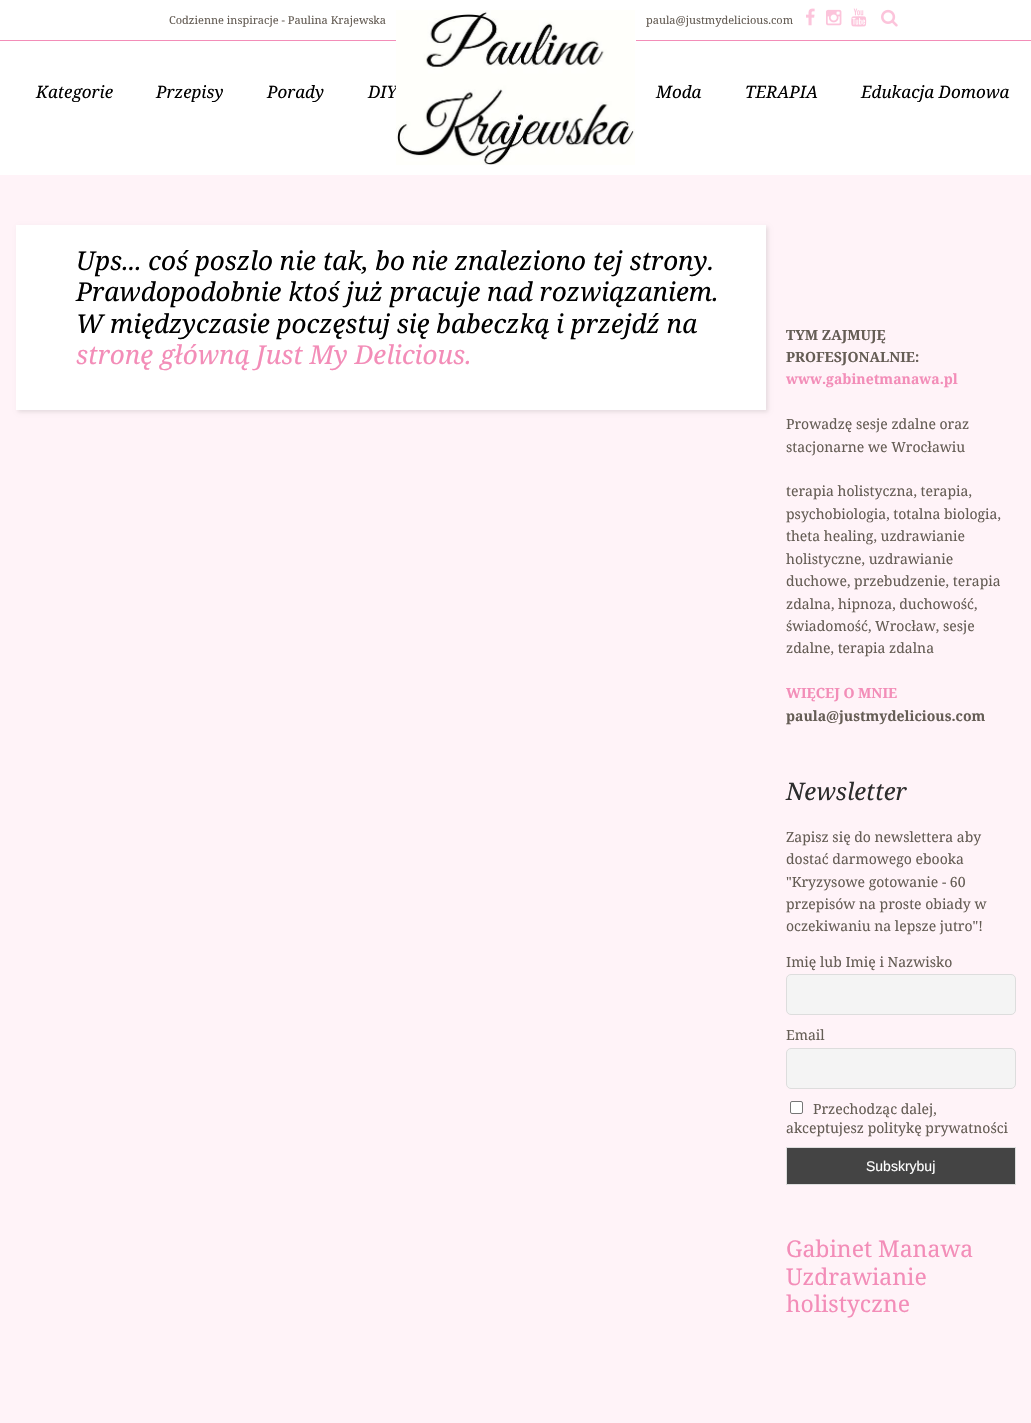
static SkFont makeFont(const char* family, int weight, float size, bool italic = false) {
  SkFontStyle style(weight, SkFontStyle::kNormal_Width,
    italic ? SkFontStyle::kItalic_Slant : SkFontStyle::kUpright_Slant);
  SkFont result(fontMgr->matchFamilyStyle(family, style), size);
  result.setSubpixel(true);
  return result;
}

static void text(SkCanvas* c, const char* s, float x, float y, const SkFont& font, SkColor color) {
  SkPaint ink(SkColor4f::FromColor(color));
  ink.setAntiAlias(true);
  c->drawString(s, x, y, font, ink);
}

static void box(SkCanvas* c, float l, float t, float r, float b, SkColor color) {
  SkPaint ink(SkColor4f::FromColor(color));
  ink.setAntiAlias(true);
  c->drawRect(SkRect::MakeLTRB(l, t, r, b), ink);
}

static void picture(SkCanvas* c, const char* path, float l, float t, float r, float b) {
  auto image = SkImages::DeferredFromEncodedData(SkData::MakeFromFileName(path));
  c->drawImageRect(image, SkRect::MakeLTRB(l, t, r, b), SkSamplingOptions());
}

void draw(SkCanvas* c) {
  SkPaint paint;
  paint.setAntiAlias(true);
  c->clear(0xfffff3f8);
  box(c, 0, 0, 1031, 175, 0xffffffff);
  box(c, 0, 40, 396, 41, 0xfff38db8);
  SkFont face1 = makeFont("Noto Serif", 400, 11);
  text(c, "Codzienne inspiracje - Paulina Krajewska", 169, 24, face1, 0xff655d55);
  SkFont face2 = makeFont("Noto Serif", 400, 17, true);
  text(c, "Kategorie", 36, 98, face2, 0xff000000);
  text(c, "Przepisy", 156, 98, face2, 0xff000000);
  text(c, "Porady", 267, 98, face2, 0xff000000);
  text(c, "DIY", 368, 98, face2, 0xff000000);
  picture(c, "img_01.png", 396, 10, 635, 165);
  box(c, 636, 40, 1031, 41, 0xfff38db8);
  text(c, "paula@justmydelicious.com", 646, 24, face1, 0xff655d55);
  picture(c, "img_02.png", 806, 8, 815, 26);
  picture(c, "img_03.png", 826, 9, 842, 26);
  picture(c, "img_04.png", 851, 8, 867, 27);
  picture(c, "img_05.png", 881, 9, 898, 27);
  text(c, "Moda", 656, 98, face2, 0xff000000);
  text(c, "TERAPIA", 745, 98, face2, 0xff000000);
  text(c, "Edukacja Domowa", 861, 98, face2, 0xff000000);
  paint.setColor(0x1a000000);
  paint.setMaskFilter(SkMaskFilter::MakeBlur(kNormal_SkBlurStyle, 2));
  c->drawRect(SkRect::MakeLTRB(18, 227, 768, 412), paint);
  paint.setMaskFilter(nullptr);
  box(c, 16, 225, 766, 410, 0xffffffff);
  SkFont face3 = makeFont("Noto Serif", 400, 26, true);
  text(c, "Ups... coś poszlo nie tak, bo nie znaleziono tej strony.", 76, 270, face3, 0xff000000);
  text(c, "Prawdopodobnie ktoś już pracuje nad rozwiązaniem.", 76, 301, face3, 0xff000000);
  text(c, "W międzyczasie poczęstuj się babeczką i przejdź na", 76, 333, face3, 0xff000000);
  text(c, "stronę główną Just My Delicious.", 76, 364, face3, 0xfff38db8);
  SkFont face4 = makeFont("Noto Serif", 700, 14);
  text(c, "TYM ZAJMUJĘ", 786, 340, face4, 0xff655d55);
  text(c, "PROFESJONALNIE:", 786, 362, face4, 0xff655d55);
  text(c, "www.gabinetmanawa.pl", 786, 384, face4, 0xfff38db8);
  SkFont face5 = makeFont("Noto Serif", 400, 14);
  text(c, "Prowadzę sesje zdalne oraz", 786, 429, face5, 0xff655d55);
  text(c, "stacjonarne we Wrocławiu", 786, 452, face5, 0xff655d55);
  text(c, "terapia holistyczna, terapia,", 786, 496, face5, 0xff655d55);
  text(c, "psychobiologia, totalna biologia,", 786, 519, face5, 0xff655d55);
  text(c, "theta healing, uzdrawianie", 786, 541, face5, 0xff655d55);
  text(c, "holistyczne, uzdrawianie", 786, 564, face5, 0xff655d55);
  text(c, "duchowe, przebudzenie, terapia", 786, 586, face5, 0xff655d55);
  text(c, "zdalna, hipnoza, duchowość,", 786, 609, face5, 0xff655d55);
  text(c, "świadomość, Wrocław, sesje", 786, 631, face5, 0xff655d55);
  text(c, "zdalne, terapia zdalna", 786, 653, face5, 0xff655d55);
  text(c, "WIĘCEJ O MNIE", 786, 698, face4, 0xfff38db8);
  text(c, "paula@justmydelicious.com", 786, 721, face4, 0xff655d55);
  SkFont face6 = makeFont("Noto Serif", 400, 24, true);
  text(c, "Newsletter", 786, 800, face6, 0xff2d2d2d);
  text(c, "Zapisz się do newslettera aby", 786, 842, face5, 0xff655d55);
  text(c, "dostać darmowego ebooka", 786, 864, face5, 0xff655d55);
  text(c, "\"Kryzysowe gotowanie - 60", 786, 887, face5, 0xff655d55);
  text(c, "przepisów na proste obiady w", 786, 909, face5, 0xff655d55);
  text(c, "oczekiwaniu na lepsze jutro\"!", 786, 931, face5, 0xff655d55);
  text(c, "Imię lub Imię i Nazwisko", 786, 967, face5, 0xff655d55);
  paint.setColor(0xfff4f4f4);
  c->drawRoundRect(SkRect::MakeLTRB(786.5f, 974.5f, 1015.5f, 1014.5f), 4.5f, 4.5f, paint);
  paint.setStyle(SkPaint::kStroke_Style);
  paint.setStrokeWidth(1);
  paint.setColor(0xffdddddd);
  c->drawRoundRect(SkRect::MakeLTRB(786.5f, 974.5f, 1015.5f, 1014.5f), 4.5f, 4.5f, paint);
  text(c, "Email", 786, 1040, face5, 0xff655d55);
  paint.setStyle(SkPaint::kFill_Style);
  paint.setColor(0xfff4f4f4);
  c->drawRoundRect(SkRect::MakeLTRB(786.5f, 1048.5f, 1015.5f, 1088.5f), 4.5f, 4.5f, paint);
  paint.setStyle(SkPaint::kStroke_Style);
  paint.setColor(0xffdddddd);
  c->drawRoundRect(SkRect::MakeLTRB(786.5f, 1048.5f, 1015.5f, 1088.5f), 4.5f, 4.5f, paint);
  paint.setStyle(SkPaint::kFill_Style);
  paint.setColor(0xffffffff);
  c->drawRoundRect(SkRect::MakeLTRB(790.5f, 1101.5f, 802.5f, 1113.5f), 1.5f, 1.5f, paint);
  paint.setStyle(SkPaint::kStroke_Style);
  paint.setColor(0xff767676);
  c->drawRoundRect(SkRect::MakeLTRB(790.5f, 1101.5f, 802.5f, 1113.5f), 1.5f, 1.5f, paint);
  text(c, "Przechodząc dalej,", 813, 1114, face5, 0xff655d55);
  text(c, "akceptujesz politykę prywatności", 786, 1133, face5, 0xff655d55);
  paint.setStyle(SkPaint::kFill_Style);
  paint.setColor(0xff444444);
  c->drawRect(SkRect::MakeLTRB(786.5f, 1147.5f, 1015.5f, 1184.5f), paint);
  paint.setStyle(SkPaint::kStroke_Style);
  paint.setColor(0xffdddddd);
  c->drawRect(SkRect::MakeLTRB(786.5f, 1147.5f, 1015.5f, 1184.5f), paint);
  SkFont face7 = makeFont("Liberation Sans", 400, 14);
  text(c, "Subskrybuj", 866, 1171, face7, 0xffffffff);
  SkFont face8 = makeFont("Noto Serif", 400, 23);
  text(c, "Gabinet Manawa", 786, 1257, face8, 0xfff38db8);
  text(c, "Uzdrawianie", 786, 1285, face8, 0xfff38db8);
  text(c, "holistyczne", 786, 1312, face8, 0xfff38db8);
}
